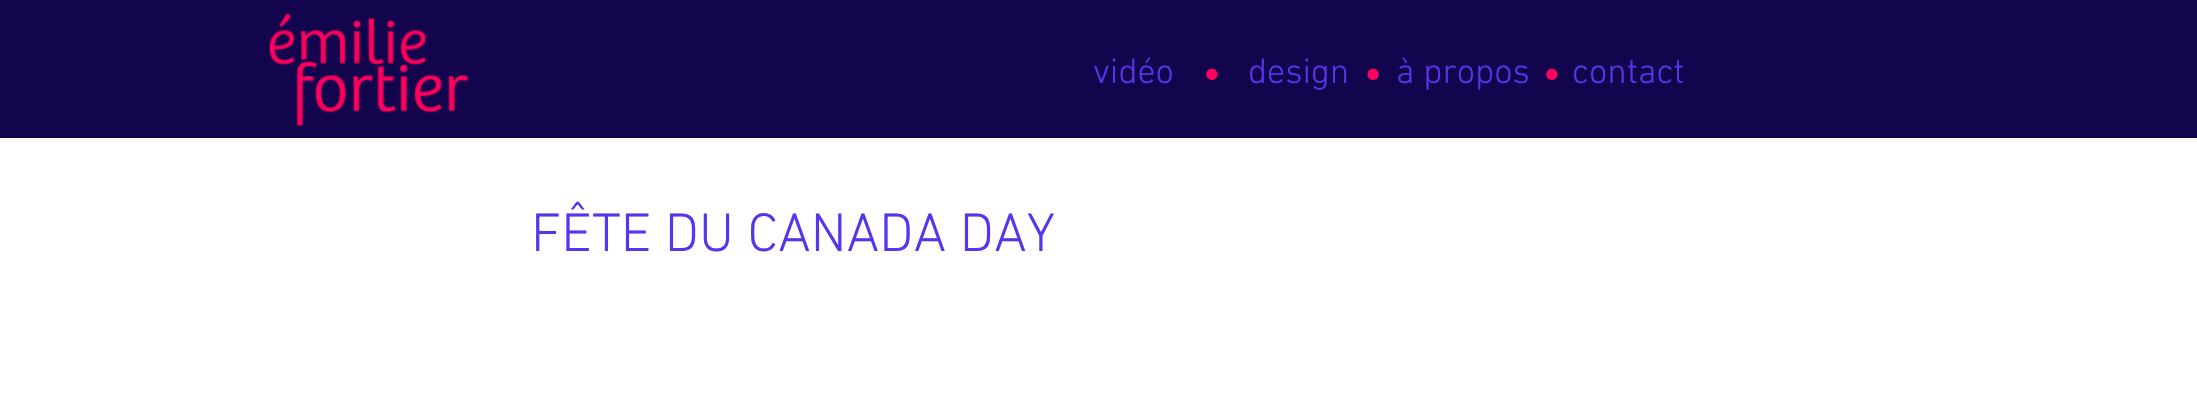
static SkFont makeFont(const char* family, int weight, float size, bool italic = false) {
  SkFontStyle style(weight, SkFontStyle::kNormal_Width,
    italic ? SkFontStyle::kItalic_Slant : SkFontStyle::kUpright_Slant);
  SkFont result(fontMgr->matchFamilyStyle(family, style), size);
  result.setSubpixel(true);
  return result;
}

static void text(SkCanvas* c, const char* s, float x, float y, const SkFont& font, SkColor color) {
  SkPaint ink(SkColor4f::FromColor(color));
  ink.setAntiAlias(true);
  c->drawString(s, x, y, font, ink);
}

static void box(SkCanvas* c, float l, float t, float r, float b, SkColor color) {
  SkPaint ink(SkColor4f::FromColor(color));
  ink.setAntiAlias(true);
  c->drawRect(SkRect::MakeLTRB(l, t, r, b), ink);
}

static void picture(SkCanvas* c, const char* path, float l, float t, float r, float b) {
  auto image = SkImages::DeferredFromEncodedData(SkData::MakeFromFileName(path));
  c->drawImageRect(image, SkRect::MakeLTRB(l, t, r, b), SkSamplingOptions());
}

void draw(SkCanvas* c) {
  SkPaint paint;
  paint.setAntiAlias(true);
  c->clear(0xffffffff);
  box(c, 0, 0, 2197, 138, 0xff13054d);
  picture(c, "img_01.png", 268, 13, 469, 127);
  SkFont face1 = makeFont("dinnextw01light", 300, 36);
  text(c, "vidéo", 1093, 83, face1, 0xff5835ed);
  text(c, "design", 1248, 83, face1, 0xff5835ed);
  text(c, "à propos", 1396, 83, face1, 0xff5835ed);
  text(c, "contact", 1572, 83, face1, 0xff5835ed);
  picture(c, "img_02.png", 1206, 68, 1218, 80);
  picture(c, "img_03.png", 1367, 68, 1379, 80);
  picture(c, "img_02.png", 1546, 68, 1558, 80);
  SkFont face2 = makeFont("dinnextw01light", 300, 55);
  text(c, "FÊTE DU CANADA DAY", 531, 251, face2, 0xff5835ed);
}
